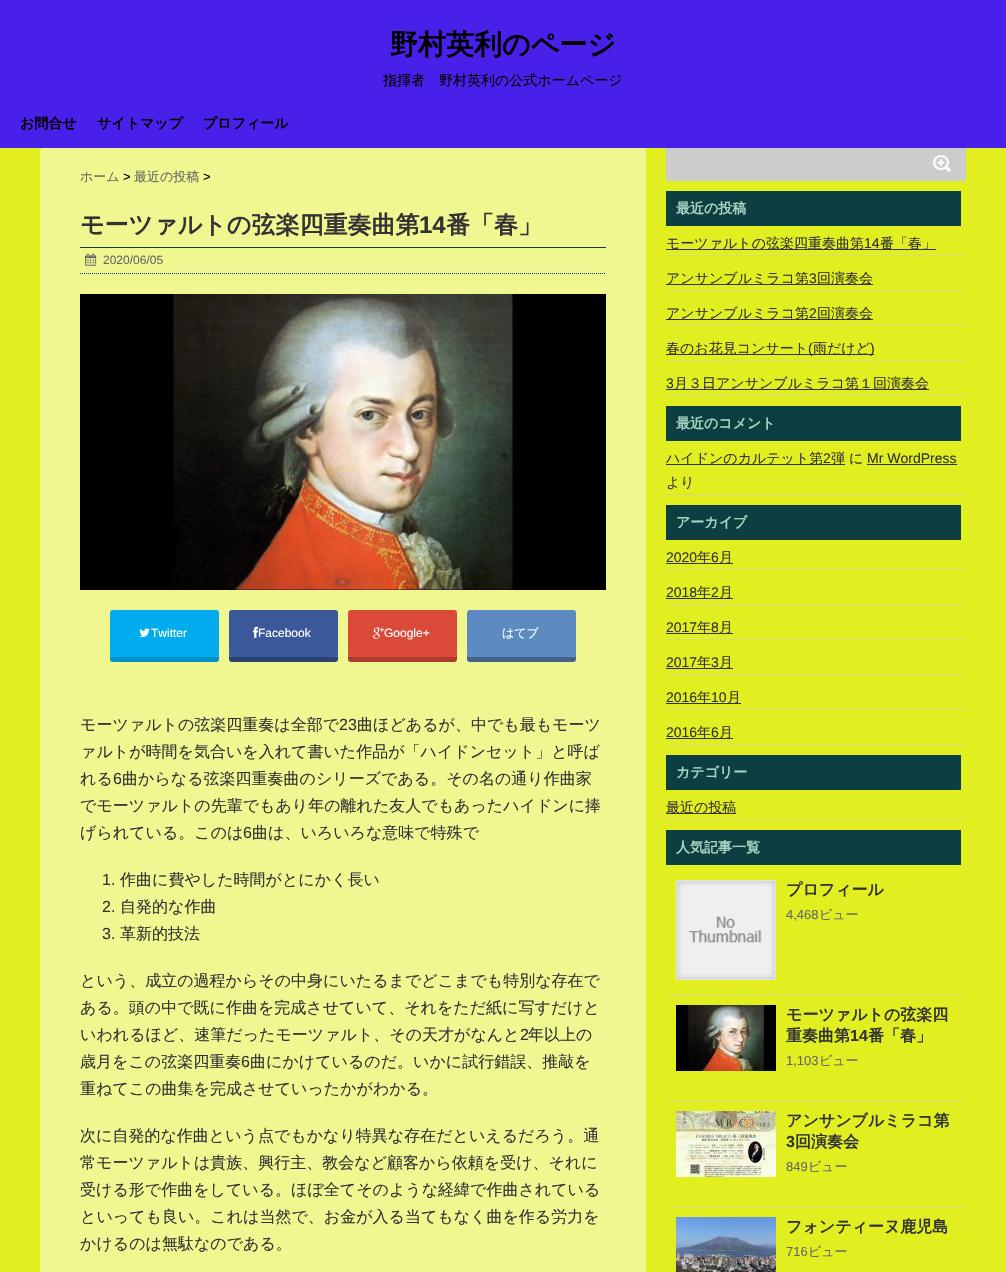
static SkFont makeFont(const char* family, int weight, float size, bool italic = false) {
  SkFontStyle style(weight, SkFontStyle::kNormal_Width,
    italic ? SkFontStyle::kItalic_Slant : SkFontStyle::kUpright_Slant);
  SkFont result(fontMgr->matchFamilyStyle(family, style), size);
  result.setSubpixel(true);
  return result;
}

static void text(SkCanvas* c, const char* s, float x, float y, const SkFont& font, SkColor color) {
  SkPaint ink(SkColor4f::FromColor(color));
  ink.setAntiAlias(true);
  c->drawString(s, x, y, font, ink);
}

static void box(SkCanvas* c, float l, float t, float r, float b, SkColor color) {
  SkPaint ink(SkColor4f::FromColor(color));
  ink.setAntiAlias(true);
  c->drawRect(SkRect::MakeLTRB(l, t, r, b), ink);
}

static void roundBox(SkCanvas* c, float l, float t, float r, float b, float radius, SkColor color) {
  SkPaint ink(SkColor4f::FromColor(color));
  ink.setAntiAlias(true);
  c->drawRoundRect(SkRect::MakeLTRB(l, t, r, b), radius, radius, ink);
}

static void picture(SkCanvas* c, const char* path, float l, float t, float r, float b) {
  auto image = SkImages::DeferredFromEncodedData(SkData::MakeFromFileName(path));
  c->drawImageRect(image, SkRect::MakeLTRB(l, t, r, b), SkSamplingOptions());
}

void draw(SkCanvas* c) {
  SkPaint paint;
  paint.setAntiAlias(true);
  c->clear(0xffe1ef21);
  box(c, 0, 0, 1006, 148, 0xff4920ea);
  SkFont face1 = makeFont("WenQuanYi Zen Hei", 700, 28);
  text(c, "野村英利のページ", 390, 54, face1, 0xff000000);
  SkFont face2 = makeFont("WenQuanYi Zen Hei", 500, 14);
  text(c, "指揮者　野村英利の公式ホームページ", 383, 85, face2, 0xff000000);
  SkFont face3 = makeFont("WenQuanYi Zen Hei", 700, 14);
  text(c, "お問合せ", 20, 128, face3, 0xff000000);
  text(c, "サイトマップ", 97, 128, face3, 0xff000000);
  text(c, "プロフィール", 203, 128, face3, 0xff000000);
  roundBox(c, 40, 148, 646, 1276, 4, 0xfff0f790);
  SkFont face4 = makeFont("WenQuanYi Zen Hei", 500, 13);
  text(c, "ホーム", 80, 181, face4, 0xff666666);
  SkFont face5 = makeFont("Liberation Sans", 400, 13);
  text(c, ">", 123, 181, face5, 0xff000000);
  text(c, "最近の投稿", 134, 181, face4, 0xff666666);
  text(c, ">", 203, 181, face5, 0xff000000);
  SkFont face6 = makeFont("WenQuanYi Zen Hei", 700, 24);
  text(c, "モーツァルトの弦楽四重奏曲第", 80, 233, face6, 0xff333333);
  SkFont face7 = makeFont("Liberation Sans", 700, 24);
  text(c, "14", 419, 233, face7, 0xff333333);
  text(c, "番「春」", 446, 233, face6, 0xff333333);
  box(c, 80, 247, 606, 248, 0xff0d3f42);
  paint.setStyle(SkPaint::kStroke_Style);
  paint.setStrokeWidth(1);
  paint.setColor(0xff0d3f42);
  paint.setPathEffect(SkDashPathEffect::Make({{1, 1}}, 0));
  c->drawPath(SkPathBuilder().moveTo(80, 273.5f).lineTo(606, 273.5f).detach(), paint);
  paint.setPathEffect(nullptr);
  picture(c, "img_01.png", 85, 253, 97, 266);
  SkFont face8 = makeFont("Liberation Sans", 400, 12);
  text(c, "2020/06/05", 103, 264, face8, 0xff666666);
  picture(c, "img_02.png", 80, 294, 606, 590);
  paint.setStyle(SkPaint::kFill_Style);
  paint.setColor(0xff0092ca);
  c->drawPath(SkPathBuilder().moveTo(110, 654).lineTo(110, 659).cubicTo(110, 661, 111, 662, 113, 662).lineTo(216, 662).cubicTo(218, 662, 219, 661, 219, 659).lineTo(219, 654).cubicTo(219, 656, 218, 657, 216, 657).lineTo(113, 657).cubicTo(111, 657, 110, 656, 110, 654).close().detach(), paint);
  roundBox(c, 110, 610, 219, 657, 3, 0xff00acee);
  picture(c, "img_03.png", 139, 628, 150, 637);
  text(c, "Twitter", 151, 637, face8, 0xffffffff);
  paint.setColor(0xff2c4373);
  c->drawPath(SkPathBuilder().moveTo(229, 654).lineTo(229, 659).cubicTo(229, 661, 230, 662, 232, 662).lineTo(335, 662).cubicTo(337, 662, 338, 661, 338, 659).lineTo(338, 654).cubicTo(338, 656, 337, 657, 335, 657).lineTo(232, 657).cubicTo(230, 657, 229, 656, 229, 654).close().detach(), paint);
  roundBox(c, 229, 610, 338, 657, 3, 0xff3b5998);
  picture(c, "img_04.png", 253, 626, 259, 638);
  text(c, "Facebook", 258, 637, face8, 0xffffffff);
  paint.setColor(0xffad3a2d);
  c->drawPath(SkPathBuilder().moveTo(348, 654).lineTo(348, 659).cubicTo(348, 661, 349, 662, 351, 662).lineTo(454, 662).cubicTo(456, 662, 457, 661, 457, 659).lineTo(457, 654).cubicTo(457, 656, 456, 657, 454, 657).lineTo(351, 657).cubicTo(349, 657, 348, 656, 348, 654).close().detach(), paint);
  roundBox(c, 348, 610, 457, 657, 3, 0xffdb4a39);
  picture(c, "img_05.png", 373, 627, 385, 639);
  text(c, "Google+", 384, 637, face8, 0xffffffff);
  paint.setColor(0xff43638b);
  c->drawPath(SkPathBuilder().moveTo(467, 654).lineTo(467, 659).cubicTo(467, 661, 468, 662, 470, 662).lineTo(573, 662).cubicTo(575, 662, 576, 661, 576, 659).lineTo(576, 654).cubicTo(576, 656, 575, 657, 573, 657).lineTo(470, 657).cubicTo(468, 657, 467, 656, 467, 654).close().detach(), paint);
  roundBox(c, 467, 610, 576, 657, 3, 0xff5d8ac1);
  SkFont face9 = makeFont("WenQuanYi Zen Hei", 500, 12);
  text(c, "はてブ", 502, 637, face9, 0xffffffff);
  SkFont face10 = makeFont("WenQuanYi Zen Hei", 500, 16);
  text(c, "モーツァルトの弦楽四重奏は全部で", 80, 730, face10, 0xff333333);
  SkFont face11 = makeFont("Liberation Sans", 400, 16);
  text(c, "23", 339, 730, face11, 0xff333333);
  text(c, "曲ほどあるが、中でも最もモーツ", 357, 730, face10, 0xff333333);
  text(c, "ァルトが時間を気合いを入れて書いた作品が「ハイドンセット」と呼ば", 80, 757, face10, 0xff333333);
  text(c, "れる", 80, 784, face10, 0xff333333);
  text(c, "6", 113, 784, face11, 0xff333333);
  text(c, "曲からなる弦楽四重奏曲のシリーズである。その名の通り作曲家", 122, 784, face10, 0xff333333);
  text(c, "でモーツァルトの先輩でもあり年の離れた友人でもあったハイドンに捧", 80, 811, face10, 0xff333333);
  text(c, "げられている。このは", 80, 838, face10, 0xff333333);
  text(c, "6", 243, 838, face11, 0xff333333);
  text(c, "曲は、いろいろな意味で特殊で", 252, 838, face10, 0xff333333);
  text(c, "1.", 102, 885, face11, 0xff333333);
  text(c, "作曲に費やした時間がとにかく長い", 120, 885, face10, 0xff333333);
  text(c, "2.", 102, 912, face11, 0xff333333);
  text(c, "自発的な作曲", 120, 912, face10, 0xff333333);
  text(c, "3.", 102, 939, face11, 0xff333333);
  text(c, "革新的技法", 120, 939, face10, 0xff333333);
  text(c, "という、成立の過程からその中身にいたるまでどこまでも特別な存在で", 80, 986, face10, 0xff333333);
  text(c, "ある。頭の中で既に作曲を完成させていて、それをただ紙に写すだけと", 80, 1013, face10, 0xff333333);
  text(c, "いわれるほど、速筆だったモーツァルト、その天才がなんと", 80, 1040, face10, 0xff333333);
  text(c, "2", 520, 1040, face11, 0xff333333);
  text(c, "年以上の", 528, 1040, face10, 0xff333333);
  text(c, "歳月をこの弦楽四重奏", 80, 1067, face10, 0xff333333);
  text(c, "6", 241, 1067, face11, 0xff333333);
  text(c, "曲にかけているのだ。いかに試行錯誤、推敲を", 250, 1067, face10, 0xff333333);
  text(c, "重ねてこの曲集を完成させていったかがわかる。", 80, 1094, face10, 0xff333333);
  text(c, "次に自発的な作曲という点でもかなり特異な存在だといえるだろう。通", 80, 1141, face10, 0xff333333);
  text(c, "常モーツァルトは貴族、興行主、教会など顧客から依頼を受け、それに", 80, 1168, face10, 0xff333333);
  text(c, "受ける形で作曲をしている。ほぼ全てそのような経緯で作曲されている", 80, 1195, face10, 0xff333333);
  text(c, "といっても良い。これは当然で、お金が入る当てもなく曲を作る労力を", 80, 1222, face10, 0xff333333);
  text(c, "かけるのは無駄なのである。", 80, 1249, face10, 0xff333333);
  box(c, 666, 148, 966, 181, 0xffcccccc);
  picture(c, "img_06.png", 933, 155, 951, 172);
  box(c, 666, 191, 961, 226, 0xff0d3f42);
  text(c, "最近の投稿", 676, 213, face3, 0xffa7d3c1);
  paint.setStyle(SkPaint::kStroke_Style);
  paint.setColor(0xffcccccc);
  paint.setPathEffect(SkDashPathEffect::Make({{1, 1}}, 0));
  c->drawPath(SkPathBuilder().moveTo(666, 255.5f).lineTo(966, 255.5f).detach(), paint);
  paint.setPathEffect(nullptr);
  box(c, 666, 249, 936, 250, 0xff333333);
  text(c, "モーツァルトの弦楽四重奏曲第", 666, 248, face2, 0xff333333);
  SkFont face12 = makeFont("Liberation Sans", 400, 14);
  text(c, "14", 864, 248, face12, 0xff333333);
  text(c, "番「春」", 880, 248, face2, 0xff333333);
  paint.setPathEffect(SkDashPathEffect::Make({{1, 1}}, 0));
  c->drawPath(SkPathBuilder().moveTo(666, 290.5f).lineTo(966, 290.5f).detach(), paint);
  paint.setPathEffect(nullptr);
  box(c, 666, 284, 873, 285, 0xff333333);
  text(c, "アンサンブルミラコ第", 666, 283, face2, 0xff333333);
  text(c, "3", 809, 283, face12, 0xff333333);
  text(c, "回演奏会", 817, 283, face2, 0xff333333);
  paint.setPathEffect(SkDashPathEffect::Make({{1, 1}}, 0));
  c->drawPath(SkPathBuilder().moveTo(666, 325.5f).lineTo(966, 325.5f).detach(), paint);
  paint.setPathEffect(nullptr);
  box(c, 666, 319, 873, 320, 0xff333333);
  text(c, "アンサンブルミラコ第", 666, 318, face2, 0xff333333);
  text(c, "2", 809, 318, face12, 0xff333333);
  text(c, "回演奏会", 817, 318, face2, 0xff333333);
  paint.setPathEffect(SkDashPathEffect::Make({{1, 1}}, 0));
  c->drawPath(SkPathBuilder().moveTo(666, 360.5f).lineTo(966, 360.5f).detach(), paint);
  paint.setPathEffect(nullptr);
  box(c, 666, 354, 874, 355, 0xff333333);
  text(c, "春のお花見コンサート", 666, 353, face2, 0xff333333);
  text(c, "(", 808, 353, face12, 0xff333333);
  text(c, "雨だけど", 813, 353, face2, 0xff333333);
  text(c, ")", 870, 353, face12, 0xff333333);
  paint.setPathEffect(SkDashPathEffect::Make({{1, 1}}, 0));
  c->drawPath(SkPathBuilder().moveTo(666, 395.5f).lineTo(966, 395.5f).detach(), paint);
  paint.setPathEffect(nullptr);
  text(c, "3", 666, 388, face12, 0xff333333);
  box(c, 666, 389, 929, 390, 0xff333333);
  text(c, "月３日アンサンブルミラコ第１回演奏会", 674, 388, face2, 0xff333333);
  box(c, 666, 406, 961, 441, 0xff0d3f42);
  text(c, "最近のコメント", 676, 428, face3, 0xffa7d3c1);
  paint.setPathEffect(SkDashPathEffect::Make({{1, 1}}, 0));
  c->drawPath(SkPathBuilder().moveTo(666, 494.5f).lineTo(966, 494.5f).detach(), paint);
  paint.setPathEffect(nullptr);
  box(c, 666, 464, 845, 465, 0xff333333);
  text(c, "ハイドンのカルテット第", 666, 463, face2, 0xff333333);
  text(c, "2", 823, 463, face12, 0xff333333);
  text(c, "弾", 831, 463, face2, 0xff333333);
  text(c, "に", 849, 463, face2, 0xff333333);
  text(c, "Mr WordPress", 867, 463, face12, 0xff333333);
  box(c, 867, 464, 957, 465, 0xff333333);
  text(c, "より", 666, 487, face2, 0xff333333);
  box(c, 666, 505, 961, 540, 0xff0d3f42);
  text(c, "アーカイブ", 676, 527, face3, 0xffa7d3c1);
  paint.setPathEffect(SkDashPathEffect::Make({{1, 1}}, 0));
  c->drawPath(SkPathBuilder().moveTo(666, 569.5f).lineTo(966, 569.5f).detach(), paint);
  paint.setPathEffect(nullptr);
  text(c, "2020", 666, 562, face12, 0xff333333);
  box(c, 666, 563, 733, 564, 0xff333333);
  text(c, "年", 697, 562, face2, 0xff333333);
  text(c, "6", 711, 562, face12, 0xff333333);
  text(c, "月", 719, 562, face2, 0xff333333);
  paint.setPathEffect(SkDashPathEffect::Make({{1, 1}}, 0));
  c->drawPath(SkPathBuilder().moveTo(666, 604.5f).lineTo(966, 604.5f).detach(), paint);
  paint.setPathEffect(nullptr);
  text(c, "2018", 666, 597, face12, 0xff333333);
  box(c, 666, 598, 733, 599, 0xff333333);
  text(c, "年", 697, 597, face2, 0xff333333);
  text(c, "2", 711, 597, face12, 0xff333333);
  text(c, "月", 719, 597, face2, 0xff333333);
  paint.setPathEffect(SkDashPathEffect::Make({{1, 1}}, 0));
  c->drawPath(SkPathBuilder().moveTo(666, 639.5f).lineTo(966, 639.5f).detach(), paint);
  paint.setPathEffect(nullptr);
  text(c, "2017", 666, 632, face12, 0xff333333);
  box(c, 666, 633, 733, 634, 0xff333333);
  text(c, "年", 697, 632, face2, 0xff333333);
  text(c, "8", 711, 632, face12, 0xff333333);
  text(c, "月", 719, 632, face2, 0xff333333);
  paint.setPathEffect(SkDashPathEffect::Make({{1, 1}}, 0));
  c->drawPath(SkPathBuilder().moveTo(666, 674.5f).lineTo(966, 674.5f).detach(), paint);
  paint.setPathEffect(nullptr);
  text(c, "2017", 666, 667, face12, 0xff333333);
  box(c, 666, 668, 733, 669, 0xff333333);
  text(c, "年", 697, 667, face2, 0xff333333);
  text(c, "3", 711, 667, face12, 0xff333333);
  text(c, "月", 719, 667, face2, 0xff333333);
  paint.setPathEffect(SkDashPathEffect::Make({{1, 1}}, 0));
  c->drawPath(SkPathBuilder().moveTo(666, 709.5f).lineTo(966, 709.5f).detach(), paint);
  paint.setPathEffect(nullptr);
  text(c, "2016", 666, 702, face12, 0xff333333);
  box(c, 666, 703, 741, 704, 0xff333333);
  text(c, "年", 697, 702, face2, 0xff333333);
  text(c, "10", 711, 702, face12, 0xff333333);
  text(c, "月", 727, 702, face2, 0xff333333);
  paint.setPathEffect(SkDashPathEffect::Make({{1, 1}}, 0));
  c->drawPath(SkPathBuilder().moveTo(666, 744.5f).lineTo(966, 744.5f).detach(), paint);
  paint.setPathEffect(nullptr);
  text(c, "2016", 666, 737, face12, 0xff333333);
  box(c, 666, 738, 733, 739, 0xff333333);
  text(c, "年", 697, 737, face2, 0xff333333);
  text(c, "6", 711, 737, face12, 0xff333333);
  text(c, "月", 719, 737, face2, 0xff333333);
  box(c, 666, 755, 961, 790, 0xff0d3f42);
  text(c, "カテゴリー", 676, 777, face3, 0xffa7d3c1);
  paint.setPathEffect(SkDashPathEffect::Make({{1, 1}}, 0));
  c->drawPath(SkPathBuilder().moveTo(666, 819.5f).lineTo(966, 819.5f).detach(), paint);
  paint.setPathEffect(nullptr);
  box(c, 666, 813, 736, 814, 0xff333333);
  text(c, "最近の投稿", 666, 812, face2, 0xff333333);
  box(c, 666, 830, 961, 865, 0xff0d3f42);
  text(c, "人気記事一覧", 676, 852, face3, 0xffa7d3c1);
  paint.setPathEffect(SkDashPathEffect::Make({{1, 1}}, 0));
  c->drawPath(SkPathBuilder().moveTo(666, 994.5f).lineTo(966, 994.5f).detach(), paint);
  paint.setPathEffect(nullptr);
  picture(c, "img_07.png", 676, 880, 776, 980);
  SkFont face13 = makeFont("WenQuanYi Zen Hei", 700, 16);
  text(c, "プロフィール", 786, 895, face13, 0xff333333);
  text(c, "4,468", 786, 919, face5, 0xff666666);
  text(c, "ビュー", 819, 919, face4, 0xff666666);
  paint.setPathEffect(SkDashPathEffect::Make({{1, 1}}, 0));
  c->drawPath(SkPathBuilder().moveTo(666, 1100.5f).lineTo(966, 1100.5f).detach(), paint);
  paint.setPathEffect(nullptr);
  picture(c, "img_08.png", 676, 1005, 776, 1071);
  text(c, "モーツァルトの弦楽四", 786, 1020, face13, 0xff333333);
  text(c, "重奏曲第", 786, 1041, face13, 0xff333333);
  SkFont face14 = makeFont("Liberation Sans", 700, 16);
  text(c, "14", 850, 1041, face14, 0xff333333);
  text(c, "番「春」", 868, 1041, face13, 0xff333333);
  text(c, "1,103", 786, 1065, face5, 0xff666666);
  text(c, "ビュー", 819, 1065, face4, 0xff666666);
  paint.setPathEffect(SkDashPathEffect::Make({{1, 1}}, 0));
  c->drawPath(SkPathBuilder().moveTo(666, 1206.5f).lineTo(966, 1206.5f).detach(), paint);
  paint.setPathEffect(nullptr);
  picture(c, "img_09.png", 676, 1111, 776, 1177);
  text(c, "アンサンブルミラコ第", 786, 1126, face13, 0xff333333);
  text(c, "3", 786, 1147, face14, 0xff333333);
  text(c, "回演奏会", 795, 1147, face13, 0xff333333);
  text(c, "849", 786, 1171, face5, 0xff666666);
  text(c, "ビュー", 808, 1171, face4, 0xff666666);
  picture(c, "img_10.png", 676, 1217, 776, 1272);
  text(c, "フォンティーヌ鹿児島", 786, 1232, face13, 0xff333333);
  text(c, "716", 786, 1256, face5, 0xff666666);
  text(c, "ビュー", 808, 1256, face4, 0xff666666);
}
